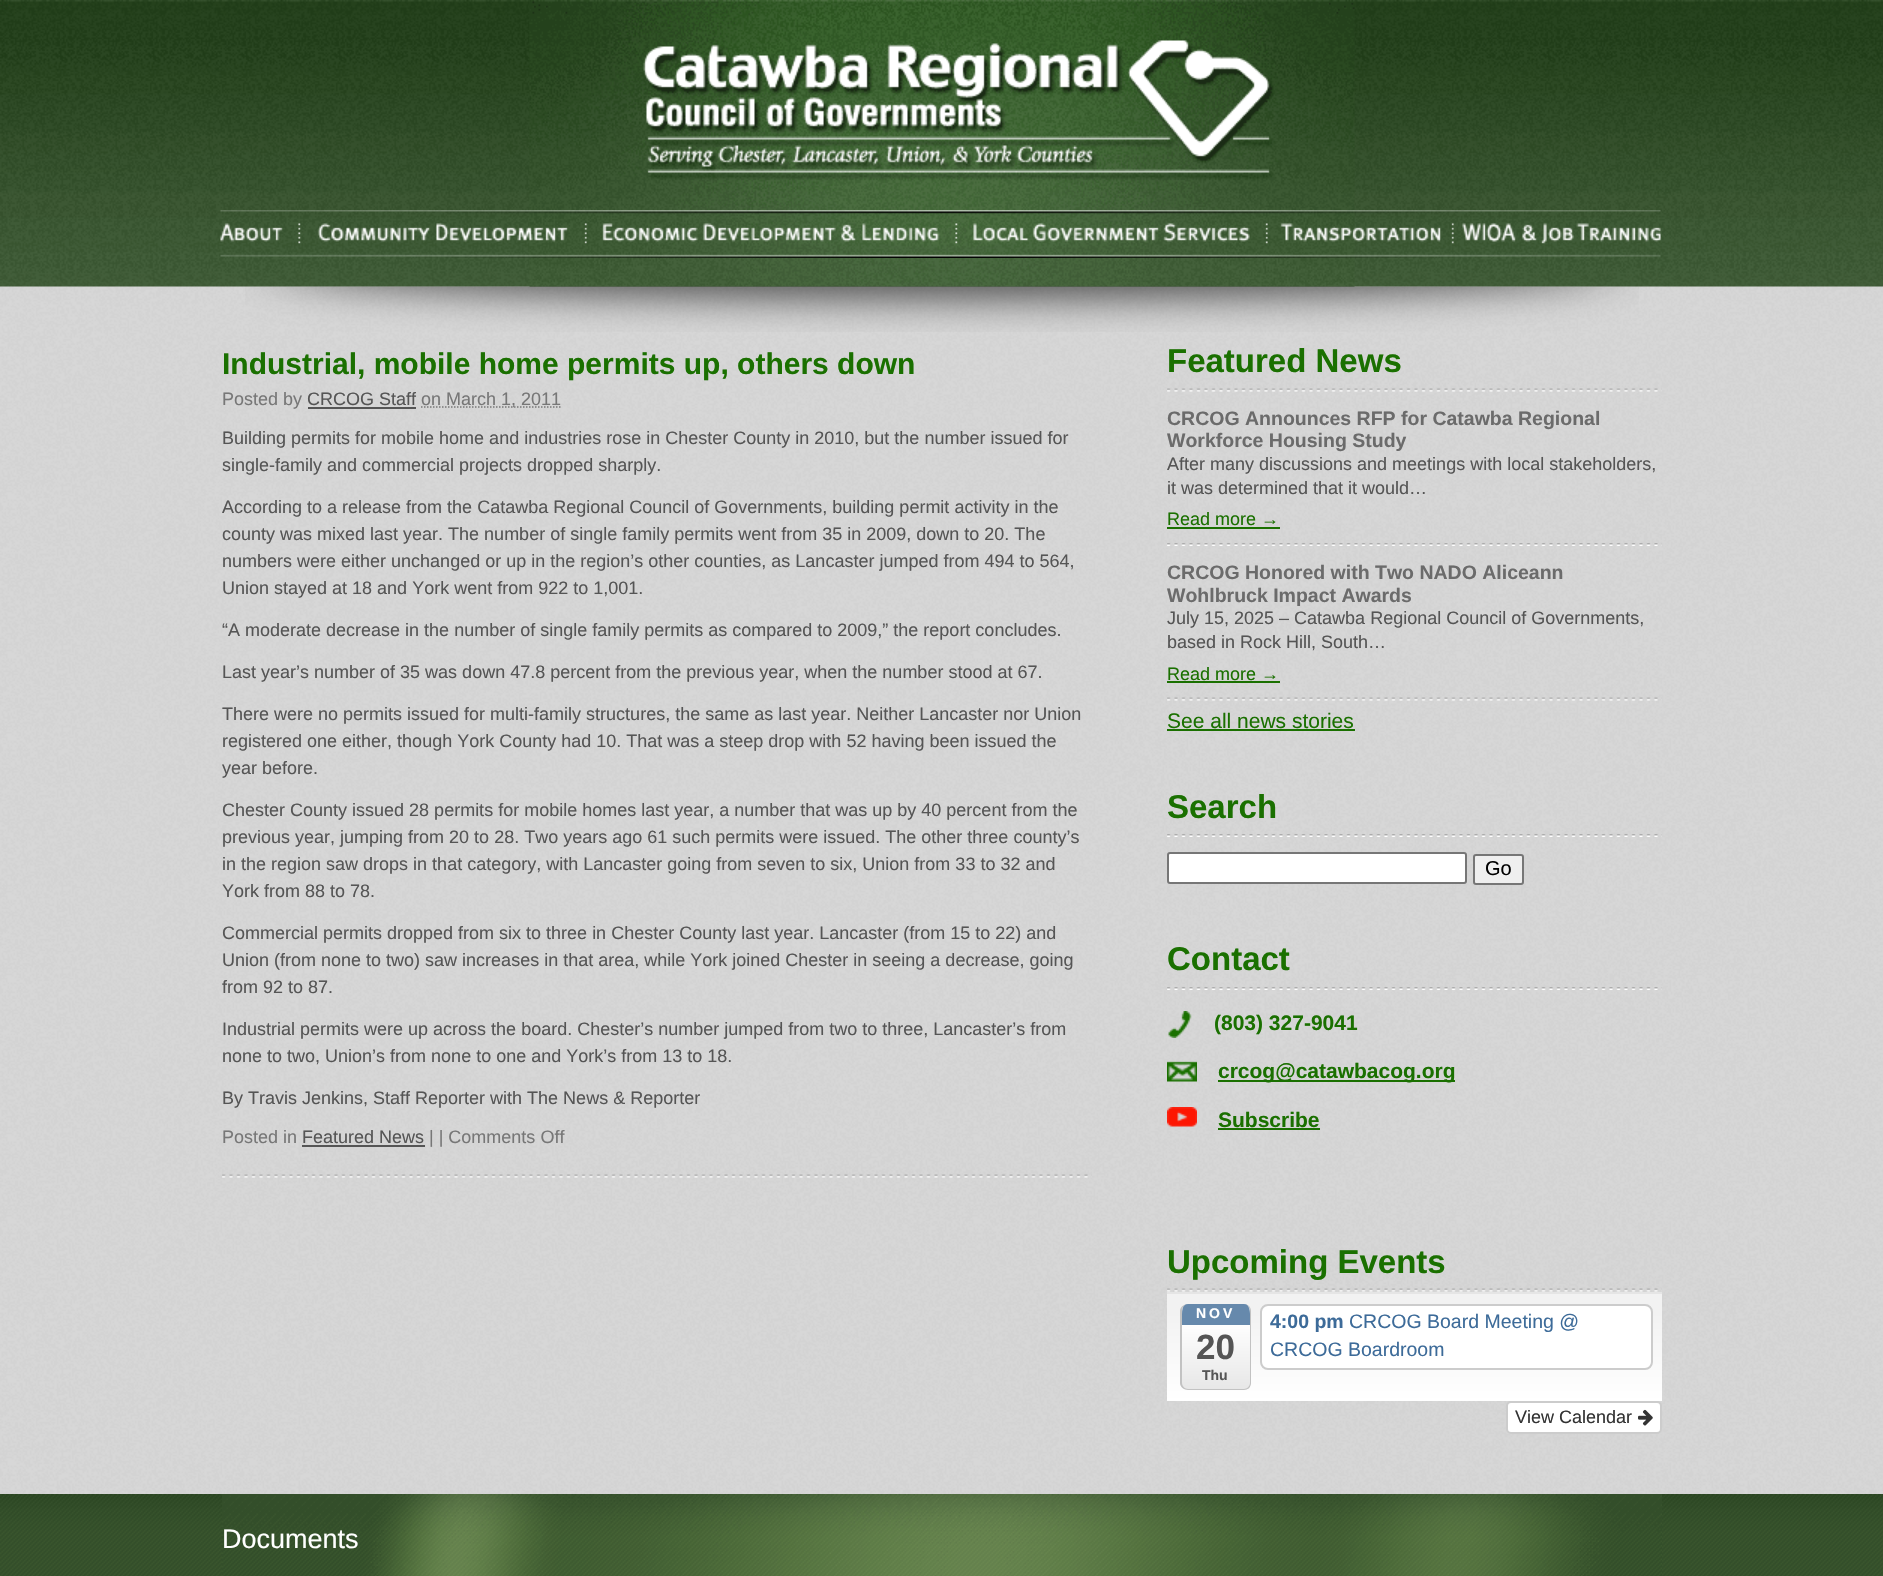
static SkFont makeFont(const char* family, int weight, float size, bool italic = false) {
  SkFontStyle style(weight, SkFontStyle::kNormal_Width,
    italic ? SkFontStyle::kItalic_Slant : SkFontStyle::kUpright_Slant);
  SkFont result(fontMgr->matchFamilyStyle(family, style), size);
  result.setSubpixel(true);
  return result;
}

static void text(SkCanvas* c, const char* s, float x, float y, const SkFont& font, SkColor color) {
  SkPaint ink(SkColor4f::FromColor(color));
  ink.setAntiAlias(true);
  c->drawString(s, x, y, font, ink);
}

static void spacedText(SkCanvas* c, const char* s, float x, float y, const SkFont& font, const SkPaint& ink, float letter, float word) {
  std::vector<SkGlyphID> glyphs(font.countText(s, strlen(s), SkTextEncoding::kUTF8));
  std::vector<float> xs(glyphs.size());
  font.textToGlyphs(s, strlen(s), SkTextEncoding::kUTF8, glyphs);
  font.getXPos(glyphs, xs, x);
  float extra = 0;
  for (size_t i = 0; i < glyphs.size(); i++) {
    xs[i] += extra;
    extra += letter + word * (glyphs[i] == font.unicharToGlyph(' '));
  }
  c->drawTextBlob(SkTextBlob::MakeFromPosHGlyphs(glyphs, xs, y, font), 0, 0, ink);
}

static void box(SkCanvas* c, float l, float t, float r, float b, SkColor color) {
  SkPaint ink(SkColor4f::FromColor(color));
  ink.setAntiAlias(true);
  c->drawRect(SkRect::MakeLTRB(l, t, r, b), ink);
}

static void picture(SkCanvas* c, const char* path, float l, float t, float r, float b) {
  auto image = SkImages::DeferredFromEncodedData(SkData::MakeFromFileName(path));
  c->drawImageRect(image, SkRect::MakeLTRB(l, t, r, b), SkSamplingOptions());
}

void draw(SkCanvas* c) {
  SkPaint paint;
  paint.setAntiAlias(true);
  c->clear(0xffffffff);
  picture(c, "img_01.png", 0, 286, 1883, 1494);
  picture(c, "img_02.png", 0, 0, 1883, 287);
  picture(c, "img_03.png", 529, 0, 1355, 287);
  picture(c, "img_04.png", 220, 210, 1661, 258);
  picture(c, "img_05.png", 245, 286, 1639, 332);
  picture(c, "img_06.png", 222, 1174, 1092, 1178);
  SkFont face1 = makeFont("Liberation Sans", 700, 30);
  text(c, "Industrial, mobile home permits up, others down", 222, 374, face1, 0xff1a7000);
  SkFont face2 = makeFont("Liberation Sans", 400, 18);
  text(c, "Posted by", 222, 405, face2, 0xff777777);
  text(c, "CRCOG Staff", 307, 405, face2, 0xff555555);
  box(c, 308, 407, 416, 409, 0xff555555);
  paint.setStyle(SkPaint::kStroke_Style);
  paint.setStrokeWidth(1.5f);
  paint.setColor(0xff777777);
  paint.setPathEffect(SkDashPathEffect::Make({{1.5f, 1.5f}}, 0));
  c->drawPath(SkPathBuilder().moveTo(421, 407).lineTo(561, 407).detach(), paint);
  paint.setPathEffect(nullptr);
  text(c, "on March 1, 2011", 421, 405, face2, 0xff777777);
  text(c, "Building permits for mobile home and industries rose in Chester County in 2010, but the number issued for", 222, 444, face2, 0xff555555);
  text(c, "single-family and commercial projects dropped sharply.", 222, 471, face2, 0xff555555);
  text(c, "According to a release from the Catawba Regional Council of Governments, building permit activity in the", 222, 513, face2, 0xff555555);
  text(c, "county was mixed last year. The number of single family permits went from 35 in 2009, down to 20. The", 222, 540, face2, 0xff555555);
  text(c, "numbers were either unchanged or up in the region’s other counties, as Lancaster jumped from 494 to 564,", 222, 567, face2, 0xff555555);
  text(c, "Union stayed at 18 and York went from 922 to 1,001.", 222, 594, face2, 0xff555555);
  text(c, "“A moderate decrease in the number of single family permits as compared to 2009,” the report concludes.", 222, 636, face2, 0xff555555);
  text(c, "Last year’s number of 35 was down 47.8 percent from the previous year, when the number stood at 67.", 222, 678, face2, 0xff555555);
  text(c, "There were no permits issued for multi-family structures, the same as last year. Neither Lancaster nor Union", 222, 720, face2, 0xff555555);
  text(c, "registered one either, though York County had 10. That was a steep drop with 52 having been issued the", 222, 747, face2, 0xff555555);
  text(c, "year before.", 222, 774, face2, 0xff555555);
  text(c, "Chester County issued 28 permits for mobile homes last year, a number that was up by 40 percent from the", 222, 816, face2, 0xff555555);
  text(c, "previous year, jumping from 20 to 28. Two years ago 61 such permits were issued. The other three county’s", 222, 843, face2, 0xff555555);
  text(c, "in the region saw drops in that category, with Lancaster going from seven to six, Union from 33 to 32 and", 222, 870, face2, 0xff555555);
  text(c, "York from 88 to 78.", 222, 897, face2, 0xff555555);
  text(c, "Commercial permits dropped from six to three in Chester County last year. Lancaster (from 15 to 22) and", 222, 939, face2, 0xff555555);
  text(c, "Union (from none to two) saw increases in that area, while York joined Chester in seeing a decrease, going", 222, 966, face2, 0xff555555);
  text(c, "from 92 to 87.", 222, 993, face2, 0xff555555);
  text(c, "Industrial permits were up across the board. Chester’s number jumped from two to three, Lancaster’s from", 222, 1035, face2, 0xff555555);
  text(c, "none to two, Union’s from none to one and York’s from 13 to 18.", 222, 1062, face2, 0xff555555);
  text(c, "By Travis Jenkins, Staff Reporter with The News & Reporter", 222, 1104, face2, 0xff555555);
  text(c, "Posted in", 222, 1143, face2, 0xff777777);
  text(c, "Featured News", 302, 1143, face2, 0xff555555);
  box(c, 302, 1145, 425, 1147, 0xff555555);
  text(c, "| | Comments Off", 429, 1143, face2, 0xff777777);
  picture(c, "img_07.png", 1167, 388, 1662, 392);
  SkFont face3 = makeFont("Liberation Sans", 700, 33);
  text(c, "Featured News", 1167, 372, face3, 0xff1a7000);
  picture(c, "img_08.png", 1167, 543, 1662, 546);
  SkFont face4 = makeFont("Liberation Sans", 700, 19.5f);
  text(c, "CRCOG Announces RFP for Catawba Regional", 1167, 425, face4, 0xff6b6b6b);
  text(c, "Workforce Housing Study", 1167, 447, face4, 0xff6b6b6b);
  text(c, "After many discussions and meetings with local stakeholders,", 1167, 470, face2, 0xff555555);
  text(c, "it was determined that it would…", 1167, 494, face2, 0xff555555);
  text(c, "Read more →", 1167, 525, face2, 0xff1a7000);
  box(c, 1167, 527, 1280, 529, 0xff1a7000);
  picture(c, "img_09.png", 1167, 697, 1662, 701);
  text(c, "CRCOG Honored with Two NADO Aliceann", 1167, 579, face4, 0xff6b6b6b);
  text(c, "Wohlbruck Impact Awards", 1167, 602, face4, 0xff6b6b6b);
  text(c, "July 15, 2025 – Catawba Regional Council of Governments,", 1167, 624, face2, 0xff555555);
  text(c, "based in Rock Hill, South…", 1167, 648, face2, 0xff555555);
  text(c, "Read more →", 1167, 680, face2, 0xff1a7000);
  box(c, 1167, 681, 1280, 683, 0xff1a7000);
  SkFont face5 = makeFont("Liberation Sans", 400, 21);
  text(c, "See all news stories", 1167, 728, face5, 0xff1a7000);
  box(c, 1167, 729, 1355, 731, 0xff1a7000);
  picture(c, "img_10.png", 1167, 834, 1662, 837);
  text(c, "Search", 1167, 818, face3, 0xff1a7000);
  paint.setStyle(SkPaint::kFill_Style);
  paint.setColor(0xffffffff);
  c->drawRoundRect(SkRect::MakeLTRB(1168, 853, 1466, 883), 2, 2, paint);
  paint.setStyle(SkPaint::kStroke_Style);
  paint.setStrokeWidth(2);
  paint.setColor(0xff767676);
  c->drawRoundRect(SkRect::MakeLTRB(1168, 853, 1466, 883), 2, 2, paint);
  paint.setStyle(SkPaint::kFill_Style);
  paint.setColor(0xffefefef);
  c->drawRoundRect(SkRect::MakeLTRB(1474, 855, 1523, 884), 2, 2, paint);
  paint.setStyle(SkPaint::kStroke_Style);
  paint.setColor(0xff767676);
  c->drawRoundRect(SkRect::MakeLTRB(1474, 855, 1523, 884), 2, 2, paint);
  SkFont face6 = makeFont("Liberation Sans", 400, 20);
  text(c, "Go", 1485, 875, face6, 0xff000000);
  picture(c, "img_11.png", 1167, 987, 1662, 990);
  text(c, "Contact", 1167, 970, face3, 0xff1a7000);
  picture(c, "img_12.png", 1168, 1011, 1192, 1038);
  SkFont face7 = makeFont("Liberation Sans", 700, 21);
  text(c, "(803) 327-9041", 1214, 1030, face7, 0xff1a7000);
  picture(c, "img_13.png", 1167, 1061, 1197, 1082);
  box(c, 1218, 1080, 1455, 1082, 0xff1a7000);
  text(c, "crcog@catawbacog.org", 1218, 1078, face7, 0xff1a7000);
  picture(c, "img_14.png", 1167, 1107, 1197, 1127);
  text(c, "Subscribe", 1218, 1127, face7, 0xff1a7000);
  box(c, 1218, 1128, 1320, 1130, 0xff1a7000);
  picture(c, "img_15.png", 1167, 1288, 1662, 1292);
  text(c, "Upcoming Events", 1167, 1273, face3, 0xff1a7000);
  paint.setStyle(SkPaint::kFill_Style);
  {
    const SkColor colors[] = {0xfff2f2f2, 0xfff2f2f2, 0xffffffff};
    const float stops[] = {0, 0.18f, 1};
    const SkPoint ends[] = {{1415, 1293}, {1415, 1401}};
    paint.setShader(SkGradientShader::MakeLinear(ends, colors, stops, 3, SkTileMode::kClamp));
    paint.setAlpha(255);
  }
  c->drawRect(SkRect::MakeLTRB(1167, 1294, 1662, 1401), paint);
  box(c, 1167, 1292, 1662, 1294, 0xffe5e5e5);
  c->save();
  c->clipPath(SkPathBuilder().moveTo(1189, 1304).lineTo(1243, 1304).cubicTo(1247.5f, 1304, 1251, 1307.5f, 1251, 1312).lineTo(1251, 1383).cubicTo(1251, 1387.5f, 1247.5f, 1391, 1243, 1391).lineTo(1189, 1391).cubicTo(1184.5f, 1391, 1181, 1387.5f, 1181, 1383).lineTo(1181, 1312).cubicTo(1181, 1307.5f, 1184.5f, 1304, 1189, 1304).close().detach(), true);
  {
    const SkColor colors[] = {0xffffffff, 0xffffffff, 0xffe7e7e7};
    const float stops[] = {0, 0.21f, 1};
    const SkPoint ends[] = {{1216, 1304}, {1216, 1389}};
    paint.setShader(SkGradientShader::MakeLinear(ends, colors, stops, 3, SkTileMode::kClamp));
    paint.setAlpha(255);
  }
  c->drawRect(SkRect::MakeLTRB(1182, 1304, 1250, 1389), paint);
  c->restore();
  paint.setShader(nullptr);
  paint.setColor(0xffc2c2c2);
  c->drawPath(SkPathBuilder(SkPathFillType::kEvenOdd).moveTo(1188, 1304).lineTo(1244, 1304).cubicTo(1248, 1304, 1251, 1307, 1251, 1311).lineTo(1251, 1383).cubicTo(1251, 1387, 1248, 1390, 1244, 1390).lineTo(1188, 1390).cubicTo(1184, 1390, 1180, 1387, 1180, 1383).lineTo(1180, 1311).cubicTo(1180, 1307, 1184, 1304, 1188, 1304).close().moveTo(1188, 1304).lineTo(1244, 1304).cubicTo(1247, 1304, 1250, 1307, 1250, 1311).lineTo(1250, 1383).cubicTo(1250, 1386, 1247, 1389, 1244, 1389).lineTo(1188, 1389).cubicTo(1185, 1389, 1182, 1386, 1182, 1383).lineTo(1182, 1311).cubicTo(1182, 1307, 1185, 1304, 1188, 1304).close().detach(), paint);
  paint.setColor(0xff6689ac);
  c->drawPath(SkPathBuilder().moveTo(1188, 1304).cubicTo(1182, 1304, 1182, 1311, 1182, 1316).lineTo(1182, 1325).lineTo(1250, 1325).lineTo(1250, 1316).cubicTo(1250, 1312, 1250, 1304, 1244, 1304).close().detach(), paint);
  SkFont face8 = makeFont("Liberation Sans", 700, 14);
  paint.setColor(0xffffffff);
  spacedText(c, "NOV", 1196, 1318, face8, paint, 3, 0);
  SkFont face9 = makeFont("Liberation Sans", 700, 35);
  text(c, "20", 1196, 1359, face9, 0xff555555);
  text(c, "Thu", 1202, 1380, face8, 0xff555555);
  c->drawRoundRect(SkRect::MakeLTRB(1261, 1305, 1652, 1369), 7, 7, paint);
  paint.setStyle(SkPaint::kStroke_Style);
  paint.setColor(0xffcccccc);
  c->drawRoundRect(SkRect::MakeLTRB(1261, 1305, 1652, 1369), 7, 7, paint);
  text(c, "4:00 pm", 1270, 1328, face4, 0xff3d6b99);
  SkFont face10 = makeFont("Liberation Sans", 400, 19.5f);
  text(c, "CRCOG Board Meeting @", 1349, 1328, face10, 0xff3d6b99);
  text(c, "CRCOG Boardroom", 1270, 1356, face10, 0xff3d6b99);
  paint.setStyle(SkPaint::kFill_Style);
  paint.setColor(0xffffffff);
  c->drawRoundRect(SkRect::MakeLTRB(1507, 1402, 1661, 1433), 4, 4, paint);
  paint.setStyle(SkPaint::kStroke_Style);
  paint.setColor(0xffcccccc);
  c->drawRoundRect(SkRect::MakeLTRB(1507, 1402, 1661, 1433), 4, 4, paint);
  text(c, "View Calendar", 1515, 1423, face2, 0xff333333);
  picture(c, "img_16.png", 1638, 1409, 1653, 1426);
  picture(c, "img_17.png", 0, 1494, 1883, 1576);
  picture(c, "img_18.png", 222, 1494, 1662, 1576);
  SkFont face11 = makeFont("Liberation Sans", 400, 27);
  text(c, "Documents", 222, 1548, face11, 0xffffffff);
}
